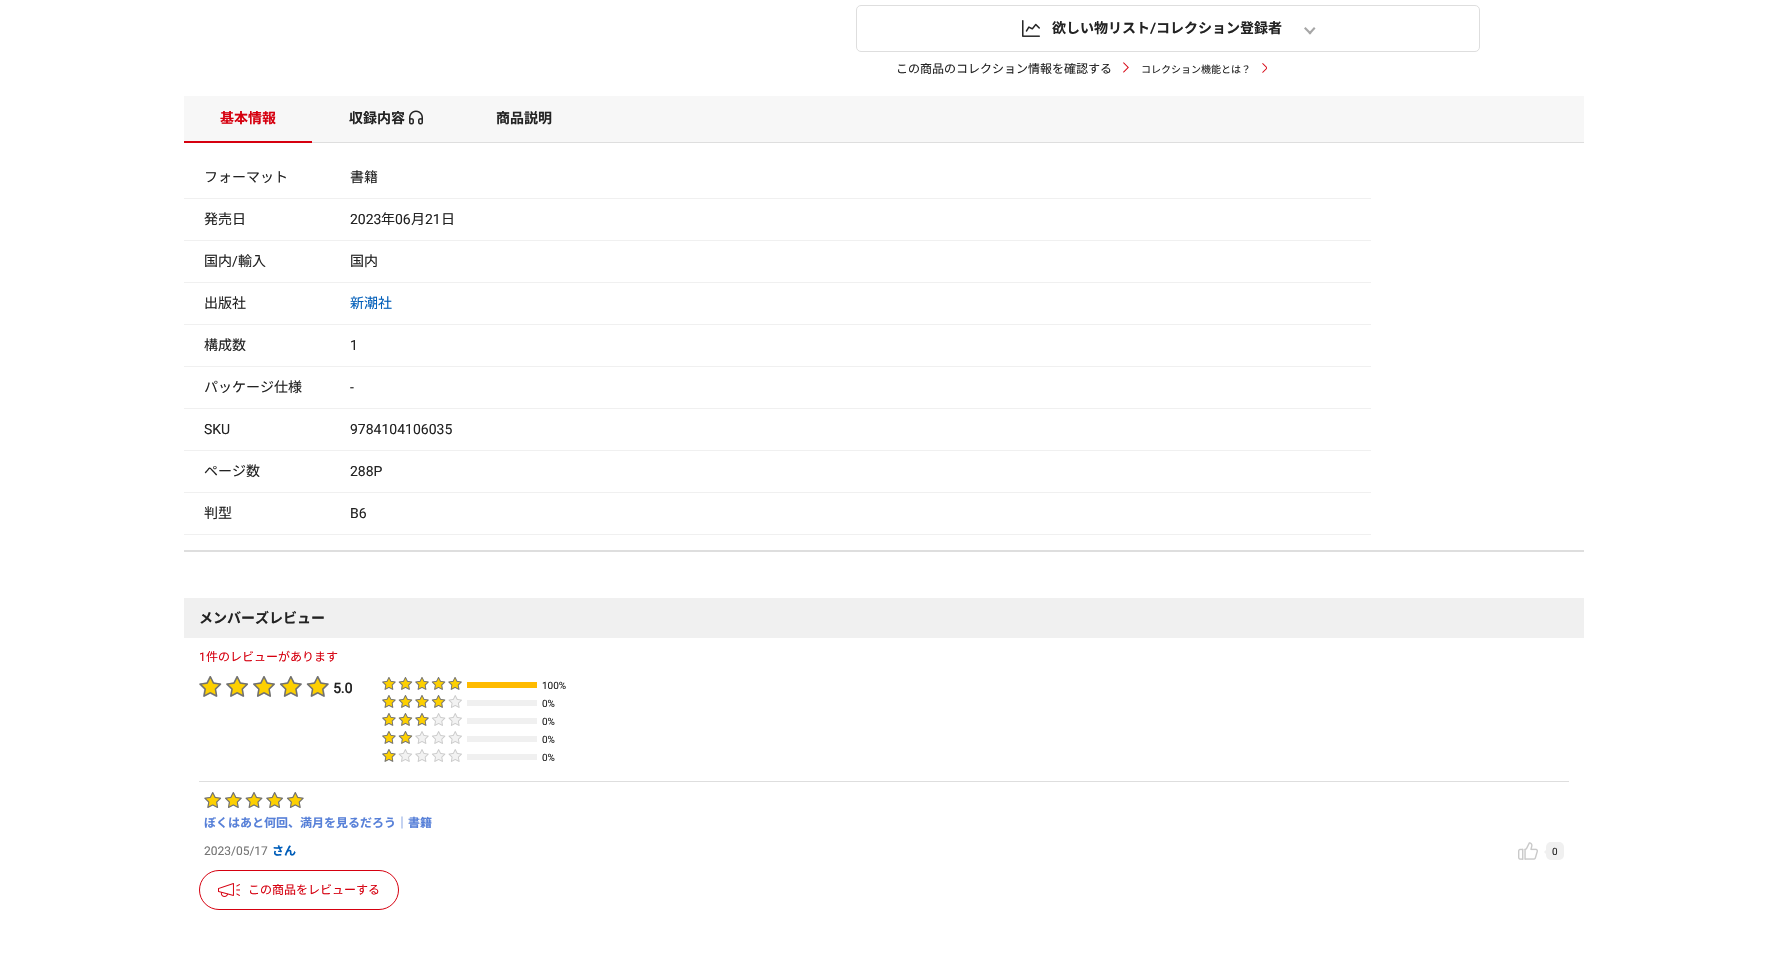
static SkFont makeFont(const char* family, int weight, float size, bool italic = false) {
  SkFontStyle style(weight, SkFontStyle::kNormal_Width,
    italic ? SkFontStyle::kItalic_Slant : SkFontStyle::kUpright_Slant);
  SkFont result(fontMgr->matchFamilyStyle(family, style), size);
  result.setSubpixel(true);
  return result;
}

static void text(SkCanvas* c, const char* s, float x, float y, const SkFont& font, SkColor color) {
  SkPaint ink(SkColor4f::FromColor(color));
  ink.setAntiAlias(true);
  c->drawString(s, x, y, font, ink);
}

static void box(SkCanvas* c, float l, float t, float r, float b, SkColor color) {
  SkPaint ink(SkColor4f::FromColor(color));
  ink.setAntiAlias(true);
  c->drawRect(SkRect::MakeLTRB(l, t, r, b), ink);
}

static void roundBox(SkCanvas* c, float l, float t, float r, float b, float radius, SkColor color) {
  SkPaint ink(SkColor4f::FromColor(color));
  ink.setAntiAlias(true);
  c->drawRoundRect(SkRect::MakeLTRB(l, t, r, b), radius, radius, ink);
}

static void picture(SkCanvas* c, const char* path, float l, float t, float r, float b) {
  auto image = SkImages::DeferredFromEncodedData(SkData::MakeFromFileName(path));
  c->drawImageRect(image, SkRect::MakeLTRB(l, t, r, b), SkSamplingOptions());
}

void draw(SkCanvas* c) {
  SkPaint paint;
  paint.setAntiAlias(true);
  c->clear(0xffffffff);
  paint.setStyle(SkPaint::kStroke_Style);
  paint.setStrokeWidth(1);
  paint.setColor(0xffdedede);
  c->drawRoundRect(SkRect::MakeLTRB(856.5f, 5.5f, 1479.5f, 51.5f), 4.5f, 4.5f, paint);
  picture(c, "img_01.png", 1022, 20, 1040, 37);
  SkFont face1 = makeFont("Noto Sans JP", 700, 14);
  text(c, "欲しい物リスト", 1052, 33, face1, 0xff232323);
  SkFont face2 = makeFont("Roboto", 700, 14);
  text(c, "/", 1150, 33, face2, 0xff232323);
  text(c, "コレクション登録者", 1156, 33, face1, 0xff232323);
  paint.setStyle(SkPaint::kFill_Style);
  paint.setColor(0xffa6a6a6);
  c->drawPath(SkPathBuilder().moveTo(1315.5f, 28.5f).lineTo(1310, 34.5f).lineTo(1308.5f, 33).lineTo(1314, 27).close().detach(), paint);
  c->drawPath(SkPathBuilder().moveTo(1311.5f, 33).lineTo(1310, 34.5f).lineTo(1304, 28.5f).lineTo(1305.5f, 27).close().detach(), paint);
  SkFont face3 = makeFont("Noto Sans JP", 100, 12);
  text(c, "この商品のコレクション情報を確認する", 896, 73, face3, 0xff232323);
  picture(c, "img_02.png", 1123, 62, 1129, 73);
  SkFont face4 = makeFont("Noto Sans JP", 100, 10);
  text(c, "コレクション機能とは？", 1141, 73, face4, 0xff232323);
  picture(c, "img_03.png", 1262, 63, 1267, 73);
  box(c, 184, 96, 312, 141, 0xfff7f7f7);
  box(c, 184, 141, 312, 143, 0xffd6000f);
  text(c, "基本情報", 220, 123, face1, 0xffd6000f);
  box(c, 312, 96, 1584, 142, 0xfff7f7f7);
  box(c, 312, 142, 1584, 143, 0xffdedede);
  text(c, "収録内容", 349, 123, face1, 0xff232323);
  picture(c, "img_04.png", 409, 110, 423, 125);
  text(c, "商品説明", 496, 123, face1, 0xff232323);
  SkFont face5 = makeFont("Noto Sans JP", 100, 14);
  text(c, "フォーマット", 204, 182, face5, 0xff232323);
  box(c, 184, 198, 1371, 199, 0xfff0f0f0);
  text(c, "書籍", 350, 182, face5, 0xff232323);
  text(c, "発売日", 204, 224, face5, 0xff232323);
  box(c, 184, 240, 1371, 241, 0xfff0f0f0);
  SkFont face6 = makeFont("Roboto", 400, 14);
  text(c, "2023", 350, 224, face6, 0xff232323);
  text(c, "年", 381, 224, face5, 0xff232323);
  text(c, "06", 395, 224, face6, 0xff232323);
  text(c, "月", 411, 224, face5, 0xff232323);
  text(c, "21", 425, 224, face6, 0xff232323);
  text(c, "日", 441, 224, face5, 0xff232323);
  text(c, "国内", 204, 266, face5, 0xff232323);
  text(c, "/", 232, 266, face6, 0xff232323);
  text(c, "輸入", 238, 266, face5, 0xff232323);
  box(c, 184, 282, 1371, 283, 0xfff0f0f0);
  text(c, "国内", 350, 266, face5, 0xff232323);
  text(c, "出版社", 204, 308, face5, 0xff232323);
  box(c, 184, 324, 1371, 325, 0xfff0f0f0);
  text(c, "新潮社", 350, 308, face5, 0xff005db9);
  text(c, "構成数", 204, 350, face5, 0xff232323);
  box(c, 184, 366, 1371, 367, 0xfff0f0f0);
  text(c, "1", 350, 350, face6, 0xff232323);
  text(c, "パッケージ仕様", 204, 392, face5, 0xff232323);
  box(c, 184, 408, 1371, 409, 0xfff0f0f0);
  text(c, "-", 350, 392, face6, 0xff232323);
  text(c, "SKU", 204, 434, face6, 0xff232323);
  box(c, 184, 450, 1371, 451, 0xfff0f0f0);
  text(c, "9784104106035", 350, 434, face6, 0xff232323);
  text(c, "ページ数", 204, 476, face5, 0xff232323);
  box(c, 184, 492, 1371, 493, 0xfff0f0f0);
  text(c, "288P", 350, 476, face6, 0xff232323);
  text(c, "判型", 204, 518, face5, 0xff232323);
  box(c, 184, 534, 1371, 535, 0xfff0f0f0);
  text(c, "B6", 350, 518, face6, 0xff232323);
  box(c, 184, 550, 1584, 552, 0xffdedede);
  box(c, 184, 598, 1584, 638, 0xfff0f0f0);
  text(c, "メンバーズレビュー", 199, 623, face1, 0xff232323);
  SkFont face7 = makeFont("Roboto", 400, 12);
  text(c, "1", 199, 661, face7, 0xffd6000f);
  text(c, "件のレビューがあります", 206, 661, face3, 0xffd6000f);
  picture(c, "img_05.png", 199, 676, 329, 697);
  picture(c, "img_06.png", 199, 676, 329, 697);
  text(c, "5.0", 333, 693, face2, 0xff232323);
  picture(c, "img_07.png", 382, 677, 462, 690);
  picture(c, "img_08.png", 382, 677, 462, 690);
  box(c, 467, 682, 537, 688, 0xffffbb00);
  SkFont face8 = makeFont("Roboto", 400, 10);
  text(c, "100%", 542, 689, face8, 0xff232323);
  picture(c, "img_07.png", 382, 695, 462, 708);
  picture(c, "img_09.png", 382, 695, 446, 708);
  box(c, 467, 700, 537, 706, 0xfff0f0f0);
  text(c, "0%", 542, 707, face8, 0xff232323);
  picture(c, "img_07.png", 382, 713, 462, 726);
  picture(c, "img_10.png", 382, 713, 429, 726);
  box(c, 467, 718, 537, 724, 0xfff0f0f0);
  text(c, "0%", 542, 725, face8, 0xff232323);
  picture(c, "img_07.png", 382, 731, 462, 744);
  picture(c, "img_11.png", 382, 731, 413, 744);
  box(c, 467, 736, 537, 742, 0xfff0f0f0);
  text(c, "0%", 542, 743, face8, 0xff232323);
  picture(c, "img_07.png", 382, 749, 462, 762);
  picture(c, "img_12.png", 382, 749, 396, 762);
  box(c, 467, 754, 537, 760, 0xfff0f0f0);
  text(c, "0%", 542, 761, face8, 0xff232323);
  box(c, 199, 781, 1569, 782, 0xffdedede);
  picture(c, "img_13.png", 204, 792, 304, 808);
  picture(c, "img_14.png", 204, 792, 304, 808);
  SkFont face9 = makeFont("Noto Sans JP", 700, 12);
  text(c, "ぼくはあと何回、満月を見るだろう｜書籍", 204, 827, face9, 0xff5780d8);
  text(c, "2023/05/17", 204, 855, face7, 0xff757575);
  text(c, "さん", 272, 855, face9, 0xff005db9);
  picture(c, "img_15.png", 1518, 842, 1538, 860);
  roundBox(c, 1546, 842, 1564, 860, 5, 0xfff0f0f0);
  paint.setColor(0xfff0f0f0);
  c->drawPath(SkPathBuilder().moveTo(1547, 849).lineTo(1547, 855).lineTo(1544, 852).close().detach(), paint);
  text(c, "0", 1552, 855, face8, 0xff232323);
  paint.setStyle(SkPaint::kStroke_Style);
  paint.setColor(0xffd6000f);
  c->drawRoundRect(SkRect::MakeLTRB(199.5f, 870.5f, 398.5f, 909.5f), 19.5f, 19.5f, paint);
  picture(c, "img_16.png", 218, 883, 240, 897);
  text(c, "この商品をレビューする", 248, 894, face3, 0xffd6000f);
}
